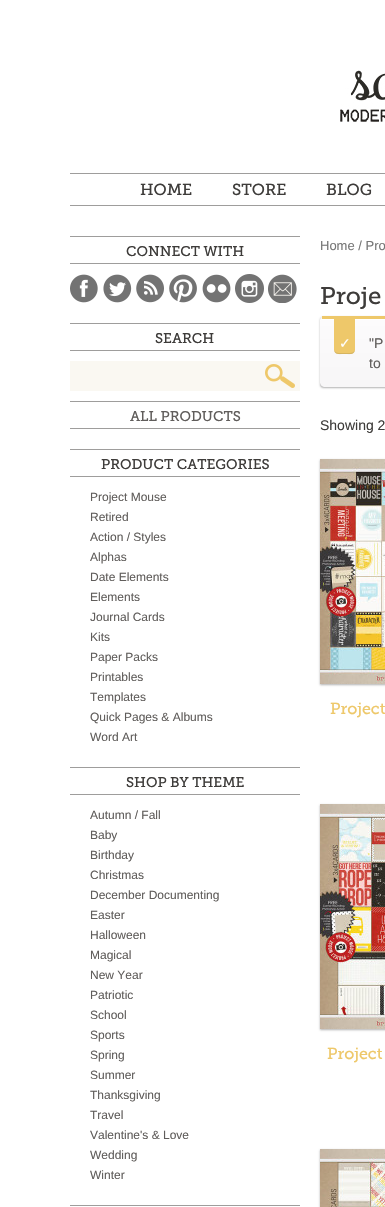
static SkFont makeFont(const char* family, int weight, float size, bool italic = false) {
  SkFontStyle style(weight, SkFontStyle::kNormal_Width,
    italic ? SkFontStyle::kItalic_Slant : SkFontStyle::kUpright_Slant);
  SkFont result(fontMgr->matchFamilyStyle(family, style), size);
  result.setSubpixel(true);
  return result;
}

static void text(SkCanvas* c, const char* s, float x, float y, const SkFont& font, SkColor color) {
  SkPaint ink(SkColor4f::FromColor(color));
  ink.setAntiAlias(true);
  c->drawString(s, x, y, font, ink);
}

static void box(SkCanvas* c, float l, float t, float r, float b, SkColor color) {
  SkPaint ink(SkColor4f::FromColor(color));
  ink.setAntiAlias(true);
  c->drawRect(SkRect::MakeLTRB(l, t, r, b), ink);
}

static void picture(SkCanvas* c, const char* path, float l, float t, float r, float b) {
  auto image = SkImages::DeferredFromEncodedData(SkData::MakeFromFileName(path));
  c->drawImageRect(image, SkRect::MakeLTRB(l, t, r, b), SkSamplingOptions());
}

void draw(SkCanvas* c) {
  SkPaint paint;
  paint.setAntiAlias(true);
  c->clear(0xffffffff);
  picture(c, "img_01.png", 340, 70, 385, 122);
  box(c, 70, 173, 385, 174, 0xff9e9d9c);
  box(c, 70, 205, 385, 206, 0xff9e9d9c);
  SkFont face1 = makeFont("Museo Slab", 400, 16);
  text(c, "HOME", 140, 195, face1, 0xff3e3c3a);
  text(c, "STORE", 232, 195, face1, 0xff3e3c3a);
  text(c, "BLOG", 326, 195, face1, 0xff3e3c3a);
  box(c, 70, 236, 300, 237, 0xff9e9d9c);
  box(c, 70, 263, 300, 264, 0xff9e9d9c);
  SkFont face2 = makeFont("Museo Slab", 400, 14);
  text(c, "CONNECT WITH", 126, 256, face2, 0xff3e3c3a);
  picture(c, "img_02.png", 70, 274, 98, 303);
  picture(c, "img_03.png", 103, 274, 132, 303);
  picture(c, "img_04.png", 136, 274, 164, 303);
  picture(c, "img_05.png", 169, 274, 197, 303);
  picture(c, "img_06.png", 202, 274, 231, 303);
  picture(c, "img_07.png", 235, 274, 264, 303);
  picture(c, "img_08.png", 268, 274, 297, 303);
  box(c, 70, 323, 300, 324, 0xff9e9d9c);
  box(c, 70, 350, 300, 351, 0xff9e9d9c);
  text(c, "SEARCH", 155, 343, face2, 0xff3e3c3a);
  box(c, 70, 361, 300, 391, 0xfffaf8f2);
  picture(c, "img_09.png", 265, 364, 295, 388);
  box(c, 70, 401, 300, 402, 0xff9e9d9c);
  box(c, 70, 428, 300, 429, 0xff9e9d9c);
  text(c, "ALL PRODUCTS", 130, 421, face2, 0xff605d5b);
  box(c, 70, 449, 300, 450, 0xff9e9d9c);
  box(c, 70, 476, 300, 477, 0xff9e9d9c);
  text(c, "PRODUCT CATEGORIES", 101, 469, face2, 0xff3e3c3a);
  SkFont face3 = makeFont("Liberation Sans", 400, 12);
  text(c, "Project Mouse", 90, 501, face3, 0xff605d5b);
  text(c, "Retired", 90, 521, face3, 0xff605d5b);
  text(c, "Action / Styles", 90, 541, face3, 0xff605d5b);
  text(c, "Alphas", 90, 561, face3, 0xff605d5b);
  text(c, "Date Elements", 90, 581, face3, 0xff605d5b);
  text(c, "Elements", 90, 601, face3, 0xff605d5b);
  text(c, "Journal Cards", 90, 621, face3, 0xff605d5b);
  text(c, "Kits", 90, 641, face3, 0xff605d5b);
  text(c, "Paper Packs", 90, 661, face3, 0xff605d5b);
  text(c, "Printables", 90, 681, face3, 0xff605d5b);
  text(c, "Templates", 90, 701, face3, 0xff605d5b);
  text(c, "Quick Pages & Albums", 90, 721, face3, 0xff605d5b);
  text(c, "Word Art", 90, 741, face3, 0xff605d5b);
  box(c, 70, 767, 300, 768, 0xff9e9d9c);
  box(c, 70, 794, 300, 795, 0xff9e9d9c);
  text(c, "SHOP BY THEME", 126, 787, face2, 0xff3e3c3a);
  text(c, "Autumn / Fall", 90, 819, face3, 0xff605d5b);
  text(c, "Baby", 90, 839, face3, 0xff605d5b);
  text(c, "Birthday", 90, 859, face3, 0xff605d5b);
  text(c, "Christmas", 90, 879, face3, 0xff605d5b);
  text(c, "December Documenting", 90, 899, face3, 0xff605d5b);
  text(c, "Easter", 90, 919, face3, 0xff605d5b);
  text(c, "Halloween", 90, 939, face3, 0xff605d5b);
  text(c, "Magical", 90, 959, face3, 0xff605d5b);
  text(c, "New Year", 90, 979, face3, 0xff605d5b);
  text(c, "Patriotic", 90, 999, face3, 0xff605d5b);
  text(c, "School", 90, 1019, face3, 0xff605d5b);
  text(c, "Sports", 90, 1039, face3, 0xff605d5b);
  text(c, "Spring", 90, 1059, face3, 0xff605d5b);
  text(c, "Summer", 90, 1079, face3, 0xff605d5b);
  text(c, "Thanksgiving", 90, 1099, face3, 0xff605d5b);
  text(c, "Travel", 90, 1119, face3, 0xff605d5b);
  text(c, "Valentine's & Love", 90, 1139, face3, 0xff605d5b);
  text(c, "Wedding", 90, 1159, face3, 0xff605d5b);
  text(c, "Winter", 90, 1179, face3, 0xff605d5b);
  box(c, 70, 1205, 300, 1206, 0xff9e9d9c);
  SkFont face4 = makeFont("Liberation Sans", 400, 13);
  text(c, "Home / Pro", 320, 250, face4, 0xff777777);
  SkFont face5 = makeFont("Museo Slab", 400, 24);
  text(c, "Proje", 320, 304, face5, 0xff3e3c3a);
  paint.setColor(0x4d000000);
  paint.setMaskFilter(SkMaskFilter::MakeBlur(kNormal_SkBlurStyle, 1));
  c->drawRoundRect(SkRect::MakeLTRB(320, 317, 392, 388), 4, 4, paint);
  paint.setMaskFilter(nullptr);
  c->save();
  c->clipPath(SkPathBuilder().moveTo(324, 316).lineTo(1026, 316).cubicTo(1028, 316, 1030, 318, 1030, 320).lineTo(1030, 383).cubicTo(1030, 385, 1028, 387, 1026, 387).lineTo(324, 387).cubicTo(322, 387, 320, 385, 320, 383).lineTo(320, 320).cubicTo(320, 318, 322, 316, 324, 316).close().detach(), true);
  {
    const SkColor colors[] = {0xfffcfbfc, 0xfff7f6f7};
    const float stops[] = {0, 1};
    const SkPoint ends[] = {{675, 251}, {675, 319}};
    paint.setShader(SkGradientShader::MakeLinear(ends, colors, stops, 2, SkTileMode::kClamp));
    paint.setAlpha(255);
  }
  c->drawRect(SkRect::MakeLTRB(320, 316, 322, 319), paint);
  {
    const SkColor colors[] = {0xfffcfbfc, 0xfff7f6f7};
    const float stops[] = {0, 1};
    const SkPoint ends[] = {{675, 319}, {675, 387}};
    paint.setShader(SkGradientShader::MakeLinear(ends, colors, stops, 2, SkTileMode::kClamp));
    paint.setAlpha(255);
  }
  c->drawPath(SkPathBuilder().moveTo(320, 319).lineTo(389, 319).lineTo(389, 383).cubicTo(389, 385, 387, 387, 385, 387).lineTo(324, 387).cubicTo(322, 387, 320, 385, 320, 383).close().detach(), paint);
  c->restore();
  paint.setShader(nullptr);
  paint.setColor(0xffffffff);
  c->drawPath(SkPathBuilder().moveTo(324, 320).lineTo(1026, 320).cubicTo(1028, 320, 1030, 320, 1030, 321).cubicTo(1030, 319, 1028, 319, 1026, 319).lineTo(324, 319).cubicTo(322, 319, 320, 319, 320, 321).cubicTo(320, 320, 322, 320, 324, 320).close().detach(), paint);
  box(c, 322, 316, 385, 319, 0xffeec86a);
  paint.setColor(0xffeec86a);
  c->drawPath(SkPathBuilder().moveTo(334, 319).lineTo(355, 319).lineTo(355, 350).cubicTo(355, 352, 353, 354, 351, 354).lineTo(338, 354).cubicTo(336, 354, 334, 352, 334, 350).close().detach(), paint);
  paint.setColor(0x1a000000);
  c->drawPath(SkPathBuilder().moveTo(334, 349).cubicTo(334, 355.5f, 339.5f, 354, 344.5f, 354).cubicTo(349.5f, 354, 355, 355.5f, 355, 349).cubicTo(355, 354, 347.5f, 353, 344.5f, 353).cubicTo(341.5f, 353, 334, 354, 334, 349).close().detach(), paint);
  SkFont face6 = makeFont("DejaVu Sans", 400, 14);
  text(c, "✓", 339, 348, face6, 0xffffffff);
  SkFont face7 = makeFont("Liberation Sans", 400, 14);
  text(c, "\"P", 369, 348, face7, 0xff605d5b);
  text(c, "to", 369, 368, face7, 0xff605d5b);
  text(c, "Showing 2", 320, 430, face7, 0xff3e3c3a);
  paint.setColor(0x4d000000);
  paint.setMaskFilter(SkMaskFilter::MakeBlur(kNormal_SkBlurStyle, 1));
  c->drawRect(SkRect::MakeLTRB(320, 460, 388, 685), paint);
  paint.setMaskFilter(nullptr);
  picture(c, "img_10.png", 320, 459, 385, 684);
  text(c, "Project", 330, 714, face1, 0xffeec86a);
  paint.setMaskFilter(SkMaskFilter::MakeBlur(kNormal_SkBlurStyle, 1));
  c->drawRect(SkRect::MakeLTRB(320, 805, 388, 1030), paint);
  paint.setMaskFilter(nullptr);
  picture(c, "img_11.png", 320, 804, 385, 1029);
  text(c, "Project", 327, 1059, face1, 0xffeec86a);
  paint.setMaskFilter(SkMaskFilter::MakeBlur(kNormal_SkBlurStyle, 1));
  c->drawRect(SkRect::MakeLTRB(320, 1150, 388, 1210), paint);
  paint.setMaskFilter(nullptr);
  picture(c, "img_12.png", 320, 1149, 385, 1207);
}
